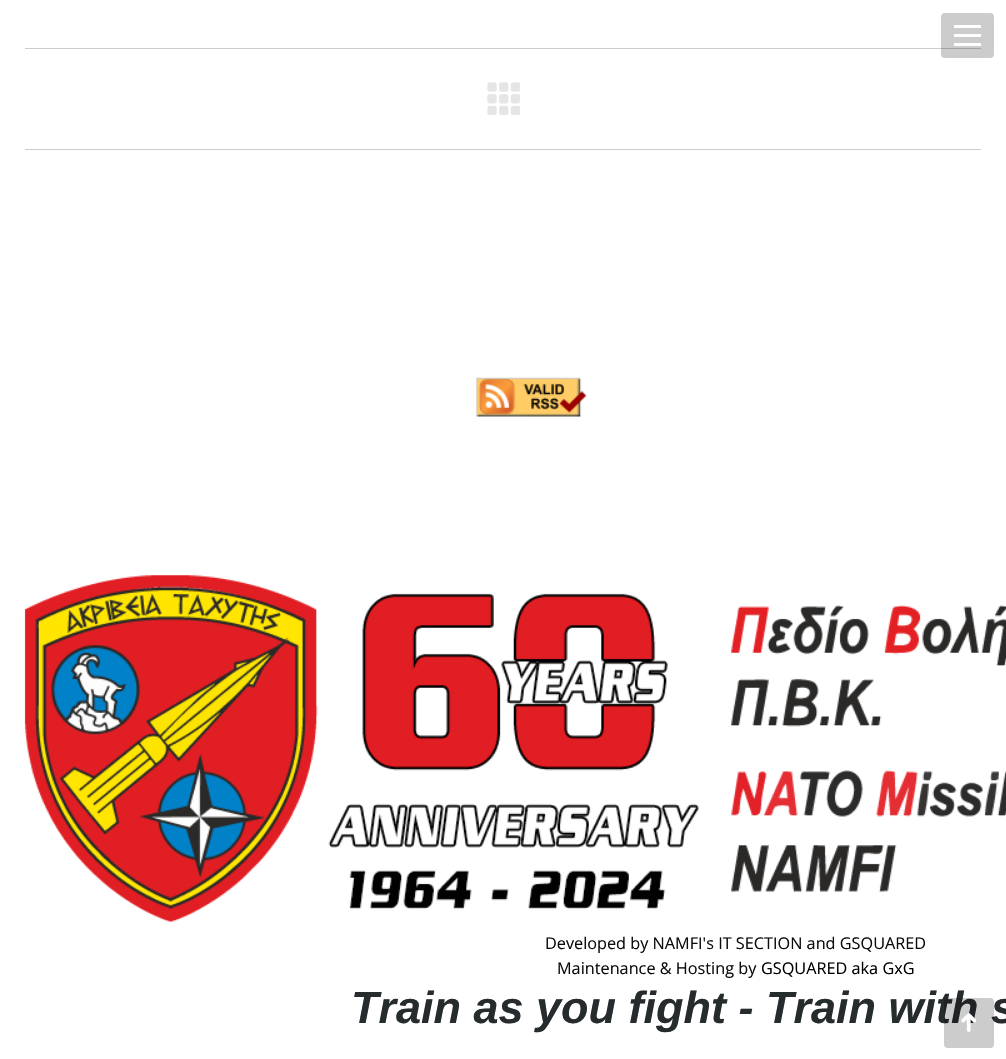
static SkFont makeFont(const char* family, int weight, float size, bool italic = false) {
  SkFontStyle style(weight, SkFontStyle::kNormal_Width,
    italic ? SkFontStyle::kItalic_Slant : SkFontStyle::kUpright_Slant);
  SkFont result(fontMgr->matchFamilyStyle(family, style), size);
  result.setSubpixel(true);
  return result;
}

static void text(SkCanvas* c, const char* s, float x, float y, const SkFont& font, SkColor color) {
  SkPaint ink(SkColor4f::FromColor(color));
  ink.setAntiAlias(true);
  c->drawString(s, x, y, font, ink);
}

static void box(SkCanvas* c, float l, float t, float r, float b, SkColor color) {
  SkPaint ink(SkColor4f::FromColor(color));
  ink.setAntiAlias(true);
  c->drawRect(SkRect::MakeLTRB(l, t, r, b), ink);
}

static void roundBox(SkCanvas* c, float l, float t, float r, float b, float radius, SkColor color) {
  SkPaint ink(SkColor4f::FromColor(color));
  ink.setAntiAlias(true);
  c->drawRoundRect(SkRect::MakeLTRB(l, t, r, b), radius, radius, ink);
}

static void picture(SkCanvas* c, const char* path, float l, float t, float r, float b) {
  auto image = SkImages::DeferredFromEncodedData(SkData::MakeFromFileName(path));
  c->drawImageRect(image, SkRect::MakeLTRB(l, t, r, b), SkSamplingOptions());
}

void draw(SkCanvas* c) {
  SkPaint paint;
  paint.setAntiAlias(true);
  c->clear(0xffffffff);
  box(c, 25, 48, 981, 49, 0xffcccccc);
  roundBox(c, 941, 13, 994, 58, 4, 0x33000000);
  box(c, 954, 25, 981, 28, 0xffffffff);
  box(c, 954, 34, 981, 37, 0xffffffff);
  box(c, 954, 43, 981, 46, 0xffffffff);
  box(c, 25, 149, 981, 150, 0xffcccccc);
  picture(c, "img_01.png", 487, 82, 520, 115);
  picture(c, "img_02.png", 476, 377, 587, 417);
  picture(c, "img_03.png", 24, 575, 1006, 922);
  SkFont face1 = makeFont("Open Sans", 400, 16.25f);
  text(c, "Developed by NAMFI's IT SECTION and GSQUARED", 545, 949, face1, 0xff0c0c0c);
  text(c, "Maintenance & Hosting by", 557, 974, face1, 0xff0c0c0c);
  text(c, "GSQUARED aka GxG", 761, 974, face1, 0xff000000);
  SkFont face2 = makeFont("Liberation Sans", 700, 45, true);
  text(c, "Train as you fight - Train with s", 351, 1023, face2, 0xff262b2e);
  roundBox(c, 944, 998, 994, 1048, 4, 0x33000000);
  picture(c, "img_04.png", 961, 1013, 977, 1032);
}
